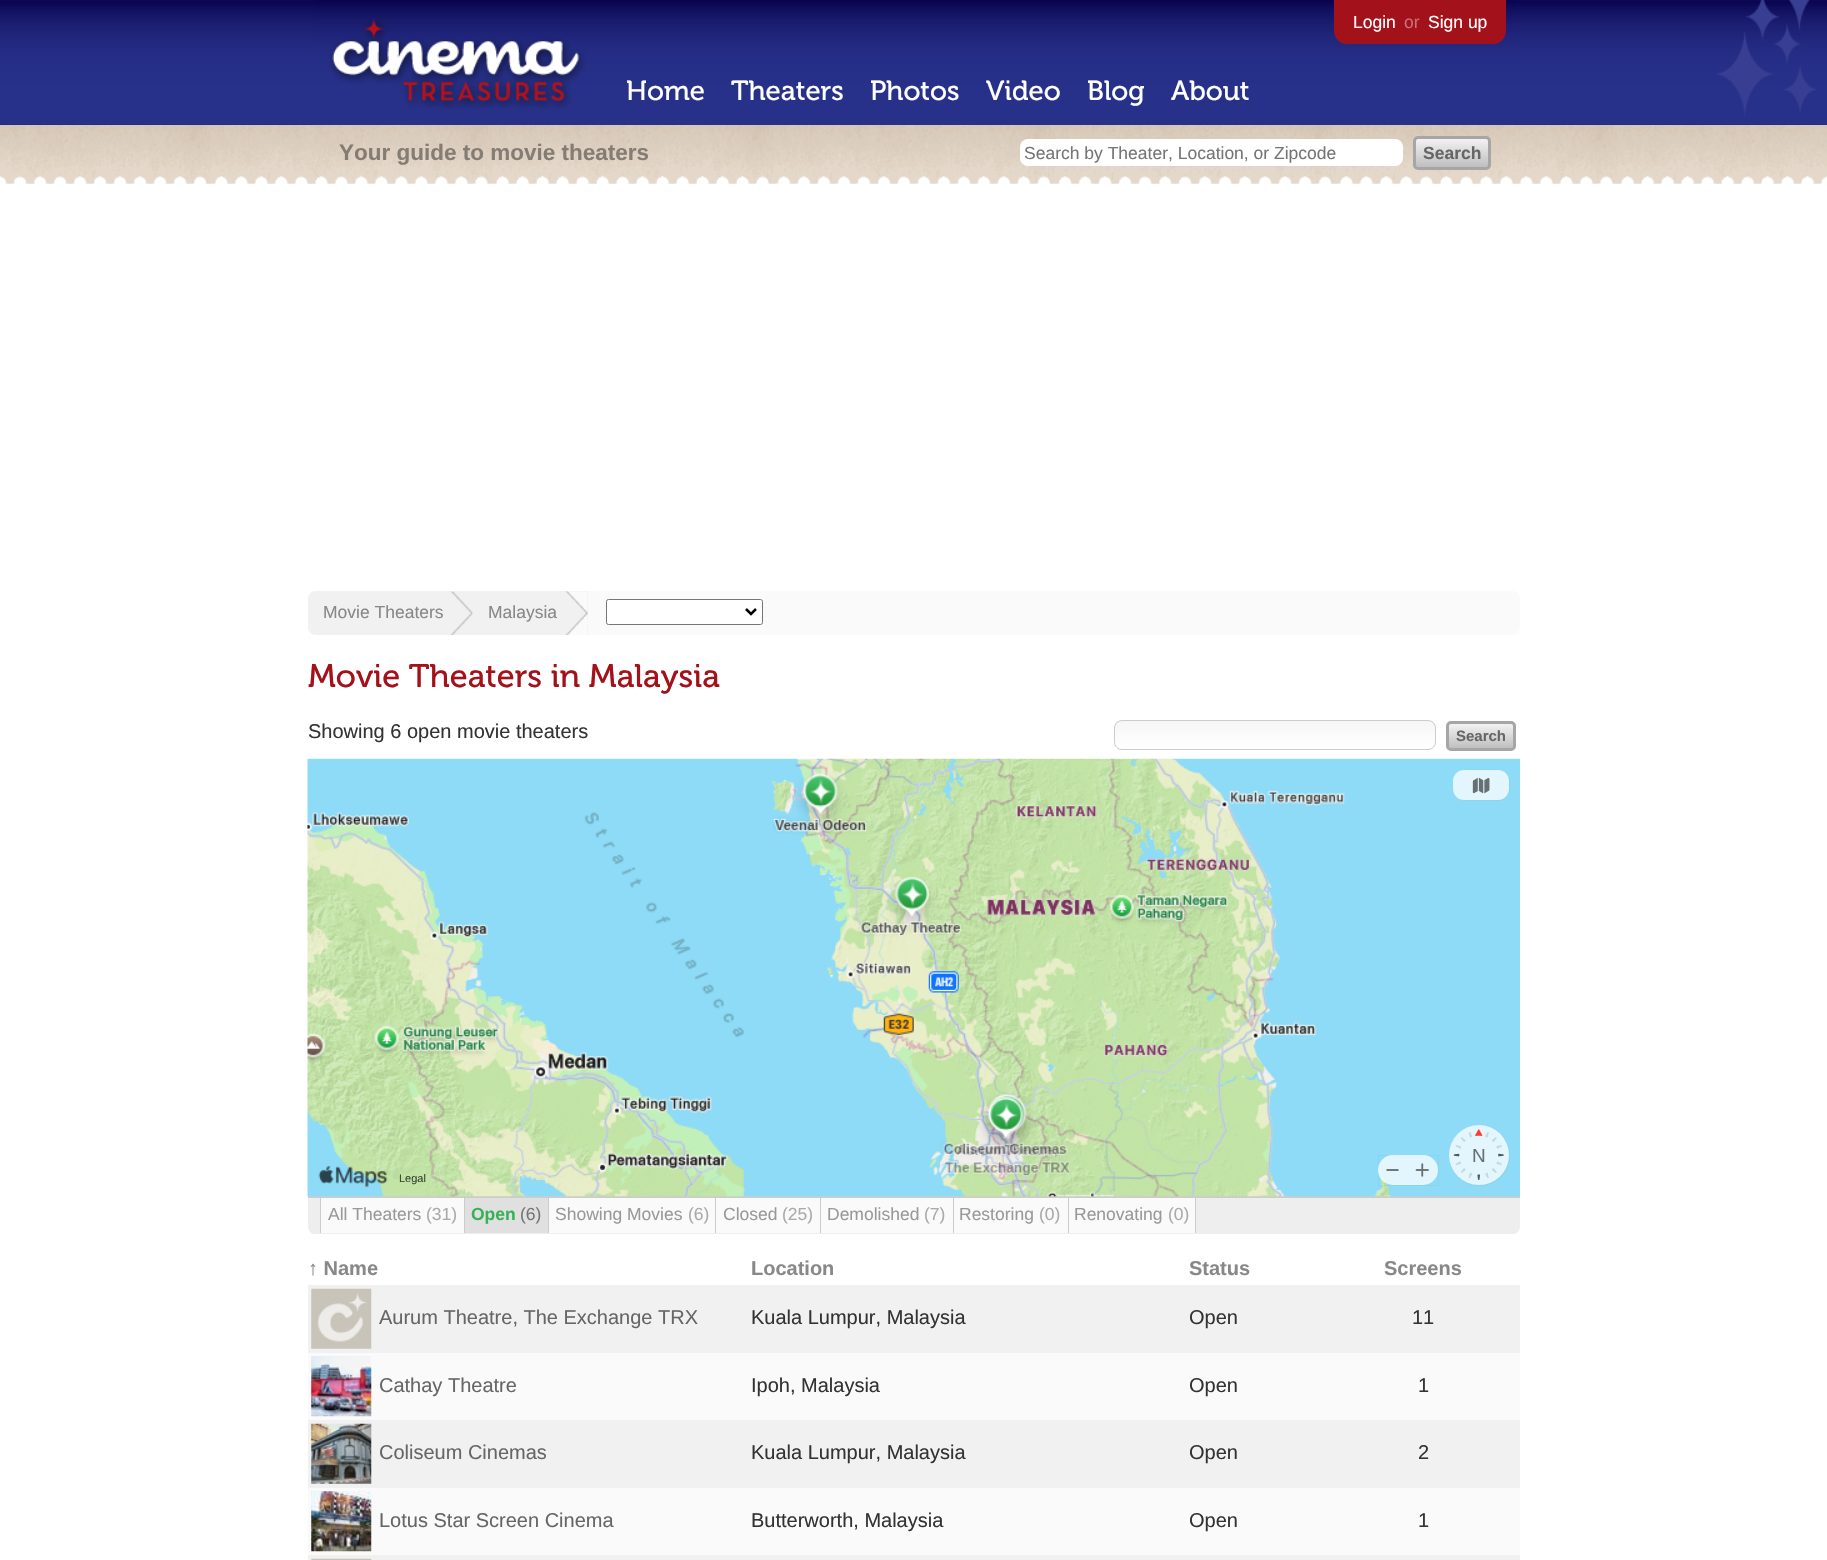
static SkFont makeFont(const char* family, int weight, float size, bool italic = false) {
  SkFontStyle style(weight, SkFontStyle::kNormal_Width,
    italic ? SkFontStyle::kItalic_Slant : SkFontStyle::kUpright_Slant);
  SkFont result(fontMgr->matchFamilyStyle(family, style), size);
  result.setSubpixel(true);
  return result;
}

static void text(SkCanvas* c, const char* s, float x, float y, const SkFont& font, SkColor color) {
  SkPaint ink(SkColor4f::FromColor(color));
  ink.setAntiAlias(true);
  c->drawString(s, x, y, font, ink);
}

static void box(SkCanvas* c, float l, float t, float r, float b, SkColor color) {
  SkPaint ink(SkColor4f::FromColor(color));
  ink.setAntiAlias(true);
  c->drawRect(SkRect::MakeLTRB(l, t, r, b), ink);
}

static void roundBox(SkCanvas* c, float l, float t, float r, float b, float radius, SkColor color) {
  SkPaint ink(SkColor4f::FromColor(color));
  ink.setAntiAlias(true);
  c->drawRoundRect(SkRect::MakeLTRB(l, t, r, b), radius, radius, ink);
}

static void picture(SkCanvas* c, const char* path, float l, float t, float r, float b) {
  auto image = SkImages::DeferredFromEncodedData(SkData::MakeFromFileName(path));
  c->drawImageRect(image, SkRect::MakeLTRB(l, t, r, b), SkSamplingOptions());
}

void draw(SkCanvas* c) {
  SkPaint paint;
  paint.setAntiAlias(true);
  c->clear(0xffffffff);
  picture(c, "img_01.png", 0, 0, 1827, 125);
  picture(c, "img_02.png", 314, 0, 1514, 125);
  picture(c, "img_03.png", 328, 18, 586, 110);
  SkFont face1 = makeFont("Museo", 400, 27.5f);
  text(c, "Home", 626, 100, face1, 0xffffffff);
  text(c, "Theaters", 731, 100, face1, 0xffffffff);
  text(c, "Photos", 870, 100, face1, 0xffffffff);
  text(c, "Video", 986, 100, face1, 0xffffffff);
  text(c, "Blog", 1087, 100, face1, 0xffffffff);
  text(c, "About", 1171, 100, face1, 0xffffffff);
  paint.setColor(0xffa3121b);
  c->drawPath(SkPathBuilder().moveTo(1334, 0).lineTo(1506, 0).lineTo(1506, 31).cubicTo(1506, 38, 1500, 44, 1493, 44).lineTo(1347, 44).cubicTo(1340, 44, 1334, 38, 1334, 31).close().detach(), paint);
  SkFont face2 = makeFont("Liberation Sans", 400, 17.5f);
  text(c, "Login", 1353, 28, face2, 0xffffffff);
  text(c, "or", 1404, 28, face2, 0xffc87176);
  text(c, "Sign up", 1428, 28, face2, 0xffffffff);
  picture(c, "img_04.png", 1715, 0, 1816, 116);
  picture(c, "img_05.png", 0, 125, 1827, 185);
  SkFont face3 = makeFont("Liberation Sans", 700, 22.5f);
  text(c, "Your guide to movie theaters", 339, 160, face3, 0xff857d74);
  roundBox(c, 1020, 139, 1403, 166, 8, 0xffffffff);
  text(c, "Search by Theater, Location, or Zipcode", 1024, 159, face2, 0xff757575);
  {
    const SkColor colors[] = {0xfff2f2f2, 0xffbdbdbd};
    const float stops[] = {0, 1};
    const SkPoint ends[] = {{1452, 139}, {1452, 168}};
    paint.setShader(SkGradientShader::MakeLinear(ends, colors, stops, 2, SkTileMode::kClamp));
    paint.setAlpha(255);
  }
  c->drawRoundRect(SkRect::MakeLTRB(1415, 139, 1489, 168), 2.5f, 2.5f, paint);
  paint.setStyle(SkPaint::kStroke_Style);
  paint.setStrokeWidth(3);
  paint.setShader(nullptr);
  paint.setColor(0xffa6a6a6);
  c->drawRoundRect(SkRect::MakeLTRB(1414.5f, 137.5f, 1489.5f, 168.5f), 3.5f, 3.5f, paint);
  SkFont face4 = makeFont("Liberation Sans", 700, 17.5f);
  text(c, "Search", 1423, 159, face4, 0xff666666);
  roundBox(c, 308, 591, 1520, 635, 8, 0xfffafafa);
  paint.setStyle(SkPaint::kFill_Style);
  paint.setColor(0xfff1f1f1);
  c->drawPath(SkPathBuilder().moveTo(316, 591).lineTo(473, 591).lineTo(473, 635).lineTo(316, 635).cubicTo(311.5f, 635, 308, 631.5f, 308, 627).lineTo(308, 599).cubicTo(308, 594.5f, 311.5f, 591, 316, 591).close().detach(), paint);
  picture(c, "img_06.png", 450, 591, 473, 635);
  text(c, "Movie Theaters", 323, 618, face2, 0xff888888);
  box(c, 473, 591, 588, 635, 0xfff1f1f1);
  picture(c, "img_07.png", 565, 591, 588, 635);
  text(c, "Malaysia", 488, 618, face2, 0xff888888);
  paint.setColor(0xffffffff);
  c->drawRoundRect(SkRect::MakeLTRB(606.5f, 599.5f, 762.5f, 624.5f), 2, 2, paint);
  paint.setStyle(SkPaint::kStroke_Style);
  paint.setStrokeWidth(1);
  paint.setColor(0xff767676);
  c->drawRoundRect(SkRect::MakeLTRB(606.5f, 599.5f, 762.5f, 624.5f), 2, 2, paint);
  paint.setStrokeWidth(2.5f);
  paint.setColor(0xff000000);
  c->drawPath(SkPathBuilder().moveTo(746, 609).lineTo(751, 614).lineTo(756, 609).detach(), paint);
  SkFont face5 = makeFont("Museo", 400, 32.5f);
  text(c, "Movie Theaters in Malaysia", 308, 687, face5, 0xffa3121b);
  SkFont face6 = makeFont("Liberation Sans", 400, 20);
  text(c, "Showing 6 open movie theaters", 308, 738, face6, 0xff333333);
  c->save();
  c->clipPath(SkPathBuilder().moveTo(1122, 720).lineTo(1428, 720).cubicTo(1432.5f, 720, 1436, 723.5f, 1436, 728).lineTo(1436, 742).cubicTo(1436, 746.5f, 1432.5f, 750, 1428, 750).lineTo(1122, 750).cubicTo(1117.5f, 750, 1114, 746.5f, 1114, 742).lineTo(1114, 728).cubicTo(1114, 723.5f, 1117.5f, 720, 1122, 720).close().detach(), true);
  paint.setStyle(SkPaint::kFill_Style);
  {
    const SkColor colors[] = {0xfff6f6f6, 0xffffffff};
    const float stops[] = {0, 1};
    const SkPoint ends[] = {{1275, 721}, {1275, 749}};
    paint.setShader(SkGradientShader::MakeLinear(ends, colors, stops, 2, SkTileMode::kClamp));
    paint.setAlpha(255);
  }
  c->drawRect(SkRect::MakeLTRB(1114, 721, 1436, 749), paint);
  c->restore();
  paint.setStyle(SkPaint::kStroke_Style);
  paint.setStrokeWidth(1);
  paint.setShader(nullptr);
  paint.setColor(0xffcccccc);
  c->drawRoundRect(SkRect::MakeLTRB(1114.5f, 720.5f, 1435.5f, 749.5f), 7.5f, 7.5f, paint);
  paint.setStyle(SkPaint::kFill_Style);
  {
    const SkColor colors[] = {0xfff2f2f2, 0xffbdbdbd};
    const float stops[] = {0, 1};
    const SkPoint ends[] = {{1481, 724}, {1481, 749}};
    paint.setShader(SkGradientShader::MakeLinear(ends, colors, stops, 2, SkTileMode::kClamp));
    paint.setAlpha(255);
  }
  c->drawRoundRect(SkRect::MakeLTRB(1449, 724, 1514, 749), 2.5f, 2.5f, paint);
  paint.setStyle(SkPaint::kStroke_Style);
  paint.setStrokeWidth(3);
  paint.setShader(nullptr);
  paint.setColor(0xffa6a6a6);
  c->drawRoundRect(SkRect::MakeLTRB(1447.5f, 722.5f, 1514.5f, 749.5f), 3.5f, 3.5f, paint);
  SkFont face7 = makeFont("Liberation Sans", 700, 15);
  text(c, "Search", 1456, 741, face7, 0xff666666);
  paint.setStyle(SkPaint::kFill_Style);
  paint.setColor(0xffeeeeee);
  c->drawPath(SkPathBuilder().moveTo(308, 1196).lineTo(1520, 1196).lineTo(1520, 1226).cubicTo(1520, 1230.5f, 1516.5f, 1234, 1512, 1234).lineTo(316, 1234).cubicTo(311.5f, 1234, 308, 1230.5f, 308, 1226).close().detach(), paint);
  box(c, 308, 1196, 1520, 1198, 0xffcccccc);
  picture(c, "img_08.png", 307, 758, 1520, 1197);
  picture(c, "img_09.png", 772, 773, 1071, 1177);
  paint.setStyle(SkPaint::kStroke_Style);
  paint.setStrokeWidth(0.6f);
  paint.setColor(0xff86d0ea);
  c->drawRoundRect(SkRect::MakeLTRB(1453.3f, 770.3f, 1509.7f, 800.7f), 12.7f, 12.7f, paint);
  roundBox(c, 1453, 770, 1509, 800, 11, 0xbfffffff);
  picture(c, "img_10.png", 1472, 777, 1490, 794);
  paint.setColor(0x0d000000);
  c->drawRect(SkRect::MakeLTRB(1378.3f, 1155.3f, 1438.7f, 1185.7f), paint);
  roundBox(c, 1378, 1155, 1438, 1185, 15, 0xbfffffff);
  picture(c, "img_11.png", 1386, 1169, 1399, 1171);
  picture(c, "img_12.png", 1415, 1163, 1429, 1177);
  paint.setColor(0xff86d0ea);
  c->drawCircle(1479.5f, 1155.5f, 30.2f, paint);
  paint.setStyle(SkPaint::kFill_Style);
  paint.setColor(0xbfffffff);
  c->drawCircle(1479, 1155, 30, paint);
  picture(c, "img_13.png", 1453, 1129, 1504, 1180);
  SkFont face8 = makeFont("Liberation Sans", 400, 19);
  text(c, "N", 1472, 1162, face8, 0xff666f72);
  picture(c, "img_14.png", 318, 1165, 388, 1188);
  SkFont face9 = makeFont("Liberation Sans", 400, 11);
  text(c, "Legal", 399, 1182, face9, 0xff3a4431);
  paint.setColor(0xffeeeeee);
  c->drawPath(SkPathBuilder().moveTo(1514, 1234).lineTo(313, 1234).cubicTo(310, 1233, 308, 1229, 308, 1226).cubicTo(308, 1230, 311, 1232, 315, 1232).lineTo(1512, 1232).cubicTo(1517, 1232, 1520, 1230, 1520, 1226).cubicTo(1520, 1229, 1518, 1233, 1514, 1234).close().detach(), paint);
  box(c, 321, 1198, 464, 1233, 0xfffafafa);
  box(c, 464, 1198, 465, 1233, 0xffcccccc);
  box(c, 320, 1198, 321, 1233, 0xffcccccc);
  text(c, "All Theaters", 328, 1220, face2, 0xff999999);
  text(c, "(31)", 426, 1220, face2, 0xffaaaaaa);
  box(c, 465, 1198, 548, 1233, 0xffe0e0e0);
  box(c, 548, 1198, 549, 1233, 0xffcccccc);
  text(c, "Open", 471, 1220, face4, 0xff38b257);
  text(c, "(6)", 520, 1220, face2, 0xff757575);
  box(c, 549, 1198, 715, 1233, 0xfffafafa);
  box(c, 715, 1198, 716, 1233, 0xffcccccc);
  text(c, "Showing Movies", 555, 1220, face2, 0xff999999);
  text(c, "(6)", 688, 1220, face2, 0xffaaaaaa);
  box(c, 716, 1198, 820, 1233, 0xfffafafa);
  box(c, 820, 1198, 821, 1233, 0xffcccccc);
  text(c, "Closed", 723, 1220, face2, 0xff999999);
  text(c, "(25)", 782, 1220, face2, 0xffaaaaaa);
  box(c, 821, 1198, 953, 1233, 0xfffafafa);
  box(c, 953, 1198, 954, 1233, 0xffcccccc);
  text(c, "Demolished", 827, 1220, face2, 0xff999999);
  text(c, "(7)", 924, 1220, face2, 0xffaaaaaa);
  box(c, 954, 1198, 1068, 1233, 0xfffafafa);
  box(c, 1068, 1198, 1069, 1233, 0xffcccccc);
  text(c, "Restoring", 959, 1220, face2, 0xff999999);
  text(c, "(0)", 1039, 1220, face2, 0xffaaaaaa);
  box(c, 1069, 1198, 1195, 1233, 0xfffafafa);
  box(c, 1195, 1198, 1196, 1233, 0xffcccccc);
  text(c, "Renovating", 1074, 1220, face2, 0xff999999);
  text(c, "(0)", 1168, 1220, face2, 0xffaaaaaa);
  SkFont face10 = makeFont("Liberation Sans", 700, 20);
  text(c, "↑ Name", 308, 1275, face10, 0xff888888);
  text(c, "Location", 751, 1275, face10, 0xff888888);
  text(c, "Status", 1189, 1275, face10, 0xff888888);
  text(c, "Screens", 1384, 1275, face10, 0xff888888);
  box(c, 308, 1285, 1520, 1353, 0xfff1f1f1);
  box(c, 311, 1289, 371, 1349, 0xffeeeeee);
  picture(c, "img_15.png", 311, 1288, 372, 1349);
  text(c, "Aurum Theatre, The Exchange TRX", 379, 1324, face6, 0xff666666);
  text(c, "Kuala Lumpur, Malaysia", 751, 1324, face6, 0xff333333);
  text(c, "Open", 1189, 1324, face6, 0xff333333);
  text(c, "11", 1412, 1324, face6, 0xff333333);
  box(c, 308, 1353, 1520, 1420, 0xfffafafa);
  box(c, 311, 1356, 371, 1416, 0xffeeeeee);
  picture(c, "img_16.png", 311, 1356, 372, 1417);
  text(c, "Cathay Theatre", 379, 1392, face6, 0xff666666);
  text(c, "Ipoh, Malaysia", 751, 1392, face6, 0xff333333);
  text(c, "Open", 1189, 1392, face6, 0xff333333);
  text(c, "1", 1418, 1392, face6, 0xff333333);
  box(c, 308, 1420, 1520, 1488, 0xfff1f1f1);
  box(c, 311, 1424, 371, 1484, 0xffeeeeee);
  picture(c, "img_17.png", 311, 1423, 372, 1484);
  text(c, "Coliseum Cinemas", 379, 1459, face6, 0xff666666);
  text(c, "Kuala Lumpur, Malaysia", 751, 1459, face6, 0xff333333);
  text(c, "Open", 1189, 1459, face6, 0xff333333);
  text(c, "2", 1418, 1459, face6, 0xff333333);
  box(c, 308, 1488, 1520, 1555, 0xfffafafa);
  box(c, 311, 1491, 371, 1551, 0xffeeeeee);
  picture(c, "img_18.png", 311, 1491, 372, 1552);
  text(c, "Lotus Star Screen Cinema", 379, 1527, face6, 0xff666666);
  text(c, "Butterworth, Malaysia", 751, 1527, face6, 0xff333333);
  text(c, "Open", 1189, 1527, face6, 0xff333333);
  text(c, "1", 1418, 1527, face6, 0xff333333);
  box(c, 308, 1555, 1520, 1560, 0xfff1f1f1);
  box(c, 311, 1559, 313, 1560, 0xffeeeeee);
  picture(c, "img_19.png", 311, 1558, 372, 1560);
}
